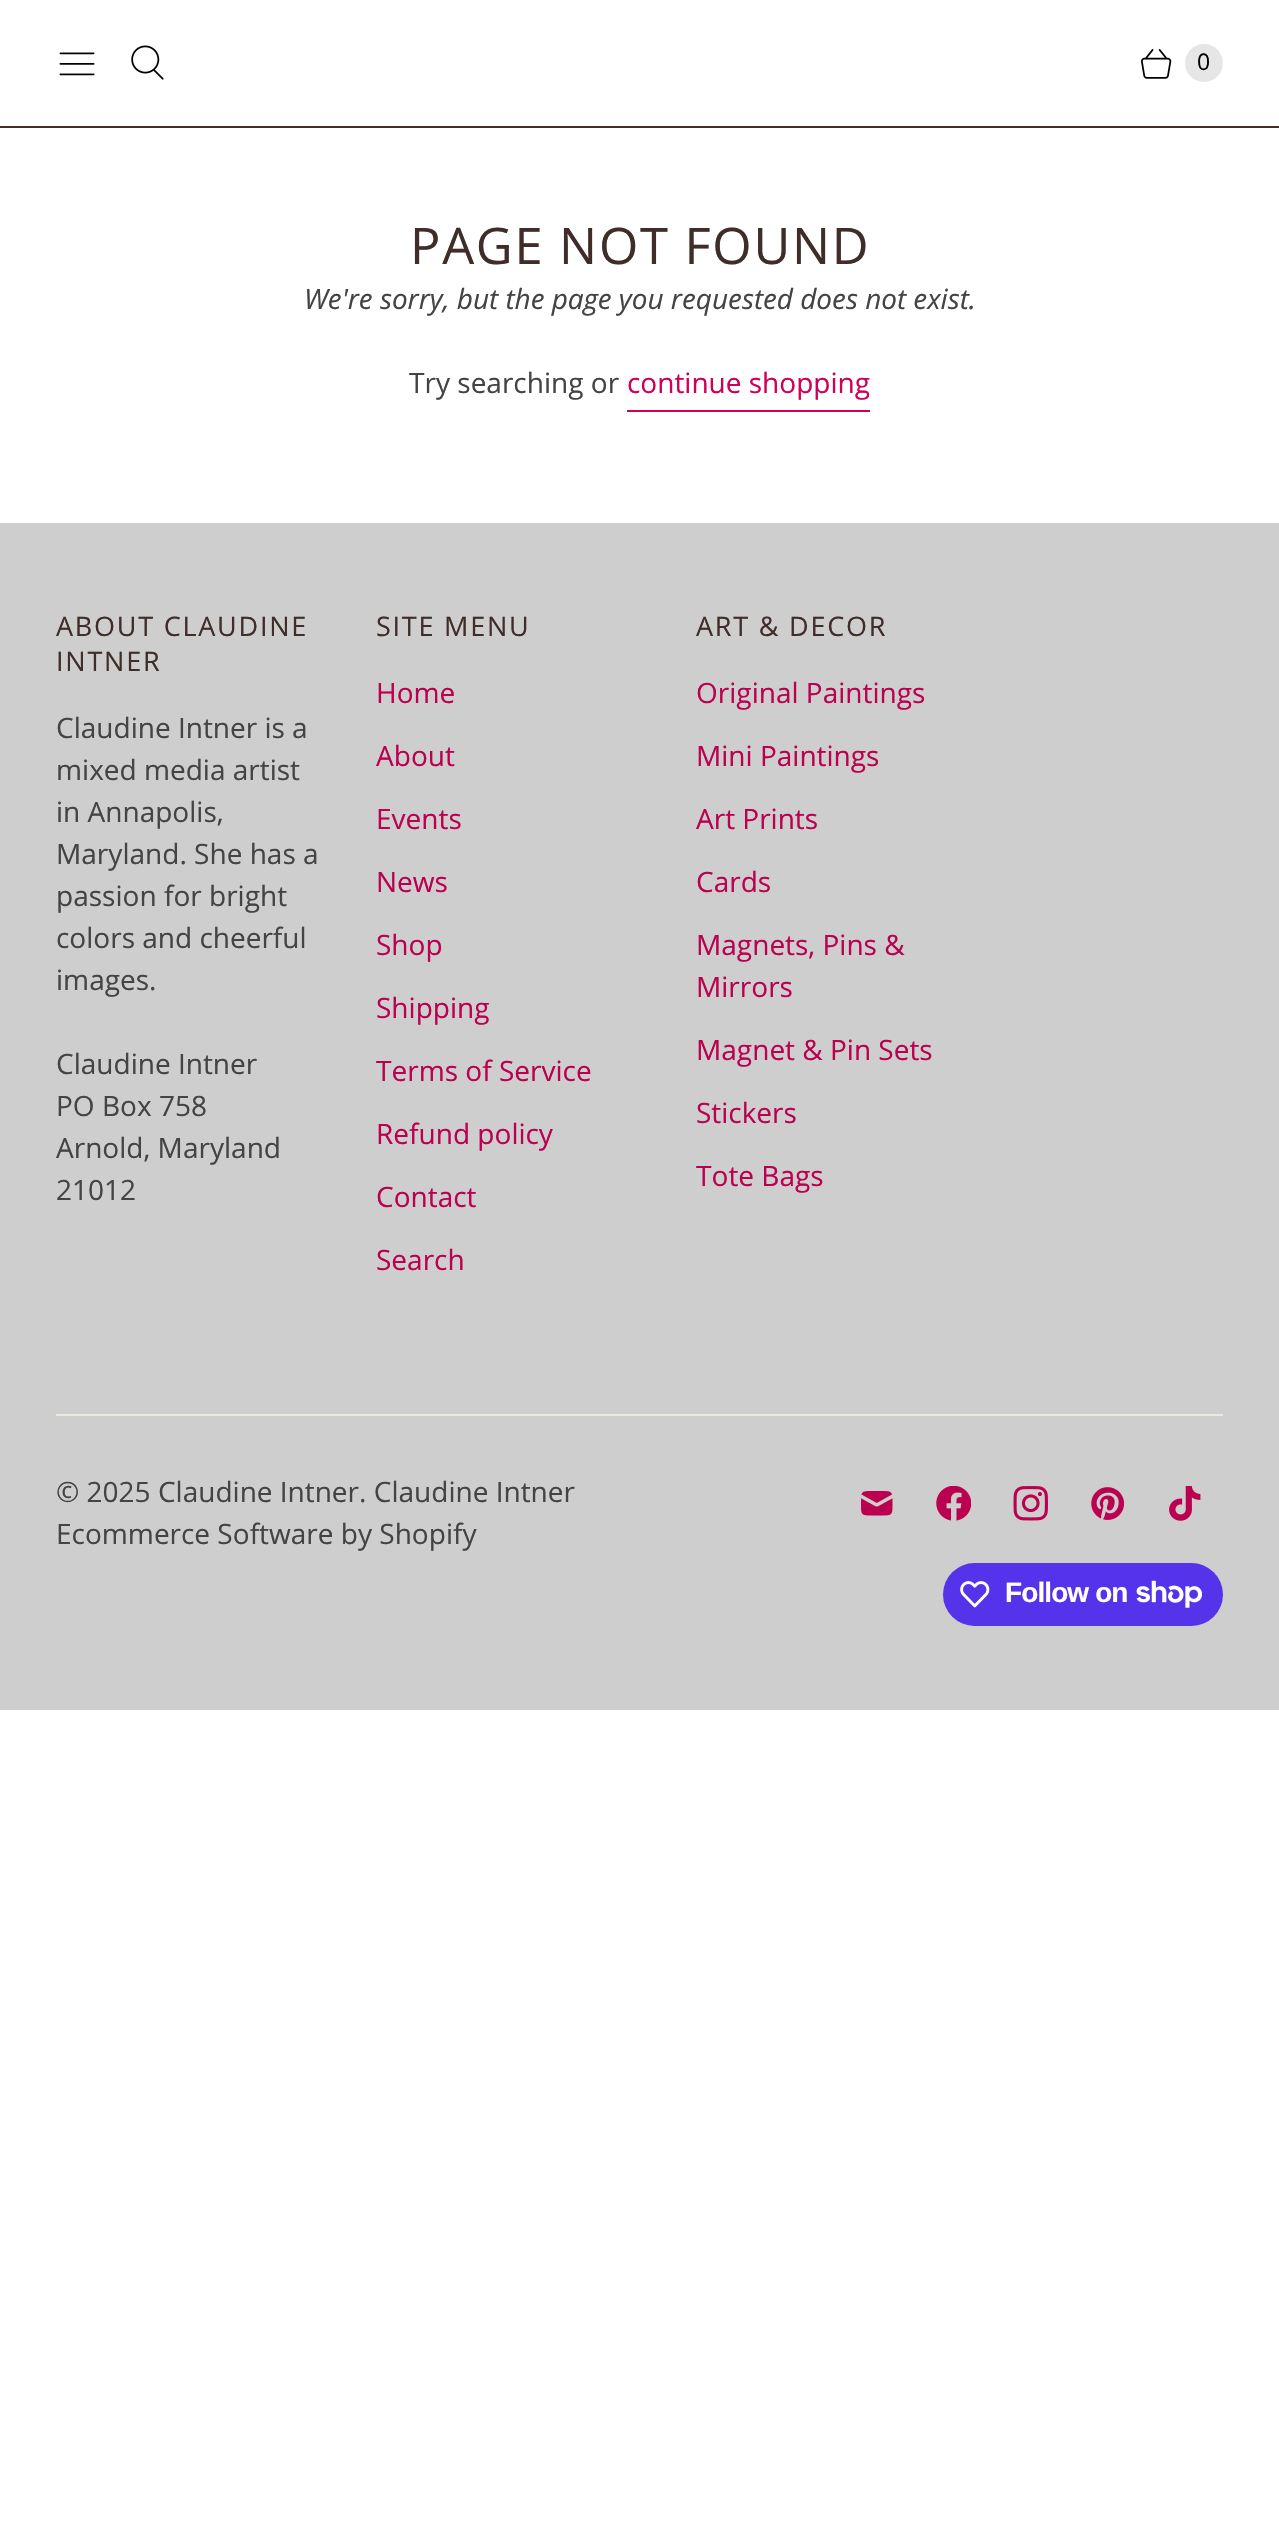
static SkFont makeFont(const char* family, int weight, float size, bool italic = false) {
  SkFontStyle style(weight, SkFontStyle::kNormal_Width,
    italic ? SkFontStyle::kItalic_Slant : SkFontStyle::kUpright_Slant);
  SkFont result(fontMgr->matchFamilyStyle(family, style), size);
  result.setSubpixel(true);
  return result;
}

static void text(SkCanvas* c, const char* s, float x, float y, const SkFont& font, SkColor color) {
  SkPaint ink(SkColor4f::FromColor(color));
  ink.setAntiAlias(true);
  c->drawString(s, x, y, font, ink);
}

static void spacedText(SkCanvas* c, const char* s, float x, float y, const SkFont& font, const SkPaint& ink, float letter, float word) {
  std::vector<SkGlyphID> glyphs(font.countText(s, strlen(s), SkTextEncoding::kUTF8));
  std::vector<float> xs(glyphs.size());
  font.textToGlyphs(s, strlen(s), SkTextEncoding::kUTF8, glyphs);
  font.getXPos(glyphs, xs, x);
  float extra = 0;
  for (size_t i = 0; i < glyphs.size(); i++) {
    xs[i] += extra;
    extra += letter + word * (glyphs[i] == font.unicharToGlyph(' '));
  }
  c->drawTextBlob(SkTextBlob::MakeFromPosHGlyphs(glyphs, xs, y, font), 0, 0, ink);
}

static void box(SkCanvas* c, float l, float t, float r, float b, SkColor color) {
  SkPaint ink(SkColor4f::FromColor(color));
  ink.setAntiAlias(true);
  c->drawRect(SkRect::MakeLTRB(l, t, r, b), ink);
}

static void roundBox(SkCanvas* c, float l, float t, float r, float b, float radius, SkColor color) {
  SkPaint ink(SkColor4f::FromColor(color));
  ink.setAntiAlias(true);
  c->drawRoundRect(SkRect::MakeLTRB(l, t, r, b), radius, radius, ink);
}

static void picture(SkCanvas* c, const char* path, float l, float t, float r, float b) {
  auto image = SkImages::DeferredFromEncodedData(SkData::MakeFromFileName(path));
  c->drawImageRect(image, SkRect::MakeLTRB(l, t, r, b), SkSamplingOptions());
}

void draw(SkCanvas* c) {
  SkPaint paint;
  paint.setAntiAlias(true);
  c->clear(0xffffffff);
  box(c, 0, 126, 1279, 128, 0xff3e2d29);
  picture(c, "img_01.png", 59, 52, 95, 76);
  picture(c, "img_02.png", 131, 45, 164, 80);
  picture(c, "img_03.png", 1141, 49, 1172, 79);
  paint.setColor(0xffe6e6e6);
  c->drawCircle(1204, 63, 19, paint);
  SkFont face1 = makeFont("Open Sans", 400, 23);
  text(c, "0", 1197, 70, face1, 0xff000000);
  SkFont face2 = makeFont("Open Sans", 400, 50.5f);
  paint.setColor(0xff3e2d29);
  spacedText(c, "PAGE NOT FOUND", 410, 264, face2, paint, 1.75f, 0);
  SkFont face3 = makeFont("Open Sans", 400, 28, true);
  text(c, "We're sorry, but the page you requested does not exist.", 304, 309, face3, 0xff444444);
  SkFont face4 = makeFont("Open Sans", 400, 28);
  text(c, "Try searching or", 409, 393, face4, 0xff444444);
  text(c, "continue shopping", 627, 393, face4, 0xffd00058);
  box(c, 627, 410, 870, 412, 0xffd00058);
  box(c, 0, 523, 1279, 1710, 0xffcecece);
  SkFont face5 = makeFont("Open Sans", 400, 27);
  spacedText(c, "ABOUT CLAUDINE", 56, 636, face5, paint, 1.75f, 0);
  spacedText(c, "INTNER", 56, 671, face5, paint, 1.75f, 0);
  text(c, "Claudine Intner is a", 56, 738, face4, 0xff444444);
  text(c, "mixed media artist", 56, 780, face4, 0xff444444);
  text(c, "in Annapolis,", 56, 822, face4, 0xff444444);
  text(c, "Maryland. She has a", 56, 864, face4, 0xff444444);
  text(c, "passion for bright", 56, 906, face4, 0xff444444);
  text(c, "colors and cheerful", 56, 948, face4, 0xff444444);
  text(c, "images.", 56, 990, face4, 0xff444444);
  text(c, "Claudine Intner", 56, 1074, face4, 0xff444444);
  text(c, "PO Box 758", 56, 1116, face4, 0xff444444);
  text(c, "Arnold, Maryland", 56, 1158, face4, 0xff444444);
  text(c, "21012", 56, 1200, face4, 0xff444444);
  spacedText(c, "SITE MENU", 376, 636, face5, paint, 1.75f, 0);
  text(c, "Home", 376, 703, face4, 0xffbc0050);
  text(c, "About", 376, 766, face4, 0xffbc0050);
  text(c, "Events", 376, 829, face4, 0xffbc0050);
  text(c, "News", 376, 892, face4, 0xffbc0050);
  text(c, "Shop", 376, 955, face4, 0xffbc0050);
  text(c, "Shipping", 376, 1018, face4, 0xffbc0050);
  text(c, "Terms of Service", 376, 1081, face4, 0xffbc0050);
  text(c, "Refund policy", 376, 1144, face4, 0xffbc0050);
  text(c, "Contact", 376, 1207, face4, 0xffbc0050);
  text(c, "Search", 376, 1270, face4, 0xffbc0050);
  spacedText(c, "ART & DECOR", 696, 636, face5, paint, 1.75f, 0);
  text(c, "Original Paintings", 696, 703, face4, 0xffbc0050);
  text(c, "Mini Paintings", 696, 766, face4, 0xffbc0050);
  text(c, "Art Prints", 696, 829, face4, 0xffbc0050);
  text(c, "Cards", 696, 892, face4, 0xffbc0050);
  text(c, "Magnets, Pins &", 696, 955, face4, 0xffbc0050);
  text(c, "Mirrors", 696, 997, face4, 0xffbc0050);
  text(c, "Magnet & Pin Sets", 696, 1060, face4, 0xffbc0050);
  text(c, "Stickers", 696, 1123, face4, 0xffbc0050);
  text(c, "Tote Bags", 696, 1186, face4, 0xffbc0050);
  box(c, 56, 1414, 1223, 1416, 0xffede9dd);
  text(c, "© 2025 Claudine Intner. Claudine Intner", 56, 1502, face4, 0xff444444);
  text(c, "Ecommerce Software by Shopify", 56, 1544, face4, 0xff444444);
  picture(c, "img_04.png", 861, 1491, 893, 1516);
  picture(c, "img_05.png", 936, 1486, 971, 1521);
  picture(c, "img_06.png", 1013, 1486, 1048, 1521);
  picture(c, "img_07.png", 1091, 1487, 1125, 1520);
  picture(c, "img_08.png", 1169, 1486, 1201, 1521);
  roundBox(c, 943, 1563, 1223, 1626, 31.5f, 0xff5433eb);
  picture(c, "img_09.png", 960, 1581, 990, 1608);
  SkFont face6 = makeFont("Liberation Sans", 700, 28);
  paint.setColor(0xffffffff);
  spacedText(c, "Follow on", 1005, 1602, face6, paint, -0.9f, 0);
  picture(c, "img_10.png", 1136, 1580, 1202, 1608);
}
